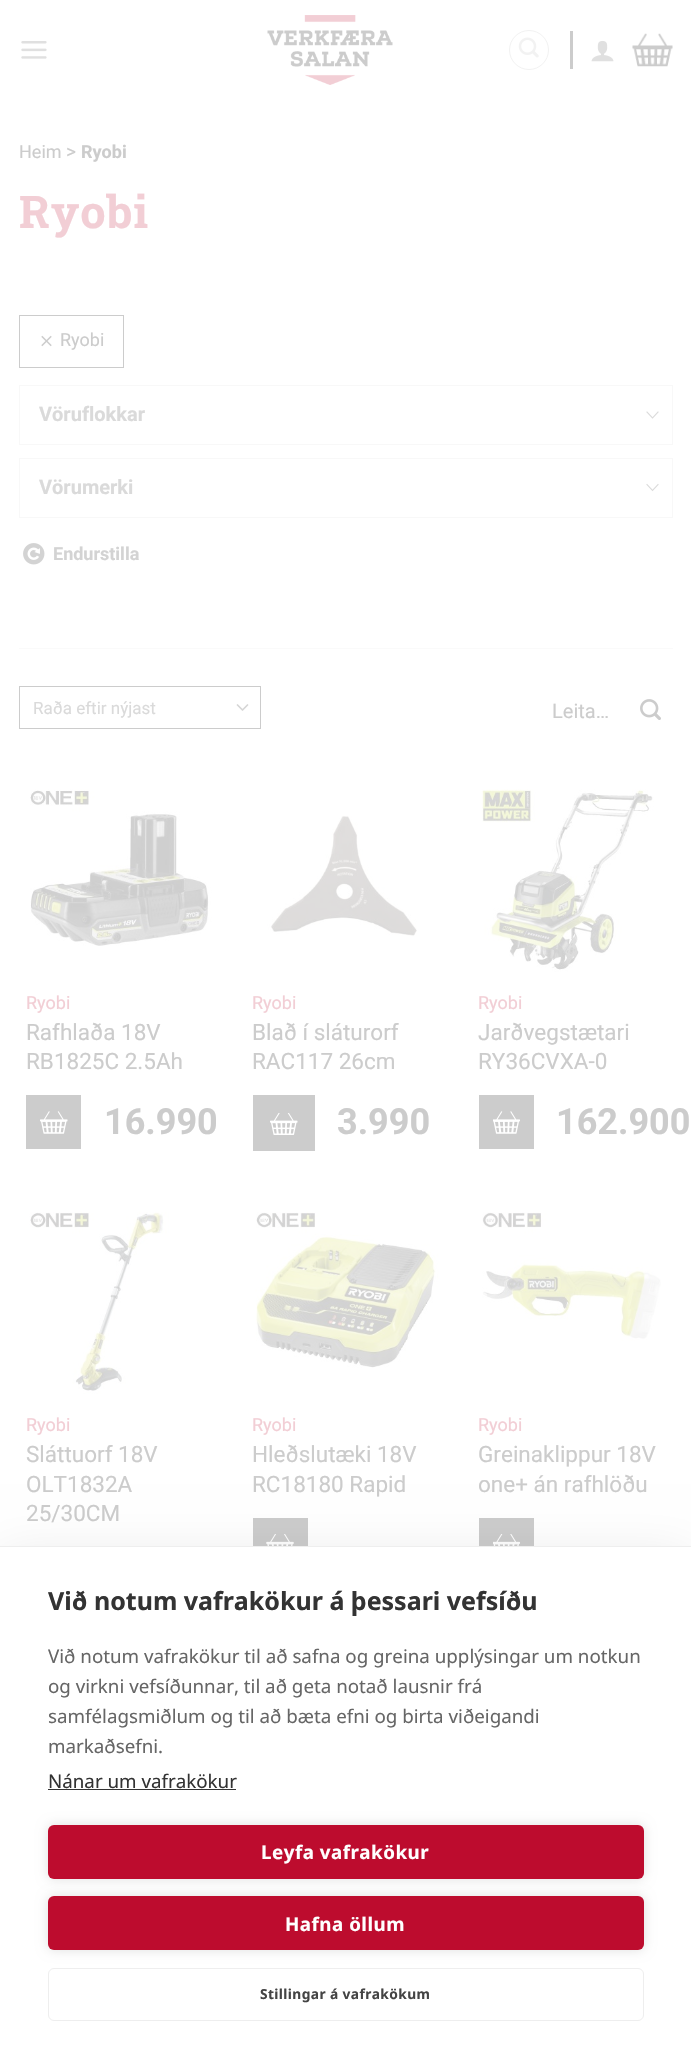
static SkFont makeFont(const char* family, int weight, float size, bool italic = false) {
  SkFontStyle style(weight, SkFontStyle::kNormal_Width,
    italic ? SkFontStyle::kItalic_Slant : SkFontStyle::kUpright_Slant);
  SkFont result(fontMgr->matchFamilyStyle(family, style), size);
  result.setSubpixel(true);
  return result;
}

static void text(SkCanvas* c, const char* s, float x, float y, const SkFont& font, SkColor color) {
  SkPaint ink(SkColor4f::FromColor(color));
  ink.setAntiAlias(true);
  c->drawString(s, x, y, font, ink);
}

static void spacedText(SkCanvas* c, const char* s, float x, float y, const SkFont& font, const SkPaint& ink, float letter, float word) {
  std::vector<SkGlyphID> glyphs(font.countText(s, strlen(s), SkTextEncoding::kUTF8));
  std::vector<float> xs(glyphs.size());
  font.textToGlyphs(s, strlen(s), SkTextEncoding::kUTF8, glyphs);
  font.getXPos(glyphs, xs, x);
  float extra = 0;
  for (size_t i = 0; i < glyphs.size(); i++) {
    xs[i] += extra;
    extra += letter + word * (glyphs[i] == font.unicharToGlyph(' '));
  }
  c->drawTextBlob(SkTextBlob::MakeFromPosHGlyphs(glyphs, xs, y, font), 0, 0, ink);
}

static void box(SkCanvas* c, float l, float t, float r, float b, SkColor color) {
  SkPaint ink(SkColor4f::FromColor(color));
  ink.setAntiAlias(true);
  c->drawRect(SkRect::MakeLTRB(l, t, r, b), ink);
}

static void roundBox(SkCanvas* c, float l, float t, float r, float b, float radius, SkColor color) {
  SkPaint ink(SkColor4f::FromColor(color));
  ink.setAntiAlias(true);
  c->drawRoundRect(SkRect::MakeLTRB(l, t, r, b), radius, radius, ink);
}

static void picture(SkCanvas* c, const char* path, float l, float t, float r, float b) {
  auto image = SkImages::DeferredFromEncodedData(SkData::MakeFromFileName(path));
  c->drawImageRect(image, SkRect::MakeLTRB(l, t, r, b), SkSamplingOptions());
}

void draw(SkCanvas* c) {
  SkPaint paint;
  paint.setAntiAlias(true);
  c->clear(0xffffffff);
  picture(c, "img_01.png", 21, 41, 47, 59);
  picture(c, "img_02.png", 267, 15, 393, 85);
  paint.setStyle(SkPaint::kStroke_Style);
  paint.setStrokeWidth(1);
  paint.setColor(0xfff2f2f2);
  c->drawCircle(529, 50, 19.5f, paint);
  picture(c, "img_03.png", 518, 37, 539, 58);
  box(c, 570, 31, 573, 69, 0xffcccccc);
  picture(c, "img_04.png", 591, 40, 614, 62);
  picture(c, "img_05.png", 632, 33, 673, 67);
  SkFont face1 = makeFont("Roboto", 400, 18);
  text(c, "Heim", 19, 158, face1, 0xffcccccc);
  SkFont face2 = makeFont("Roboto", 400, 19);
  text(c, ">", 66, 158, face2, 0xffcccccc);
  SkFont face3 = makeFont("Roboto", 700, 18);
  text(c, "Ryobi", 81, 158, face3, 0xffcccccc);
  SkFont face4 = makeFont("Roboto Slab", 700, 45);
  paint.setStyle(SkPaint::kFill_Style);
  paint.setColor(0xfff2ced5);
  spacedText(c, "Ryobi", 19, 228, face4, paint, 1, 0);
  paint.setStyle(SkPaint::kStroke_Style);
  paint.setColor(0xffcccccc);
  c->drawRect(SkRect::MakeLTRB(19.5f, 315.5f, 123.5f, 367.5f), paint);
  picture(c, "img_06.png", 41, 335, 52, 347);
  text(c, "Ryobi", 60, 346, face1, 0xffcccccc);
  paint.setColor(0xfff8f8f8);
  c->drawRect(SkRect::MakeLTRB(19.5f, 385.5f, 672.5f, 444.5f), paint);
  SkFont face5 = makeFont("Roboto", 700, 20);
  text(c, "Vöruflokkar", 39, 421, face5, 0xffdadada);
  picture(c, "img_07.png", 646, 411, 659, 419);
  c->drawRect(SkRect::MakeLTRB(19.5f, 458.5f, 672.5f, 517.5f), paint);
  text(c, "Vörumerki", 39, 494, face5, 0xffdadada);
  picture(c, "img_08.png", 646, 483, 659, 492);
  picture(c, "img_09.png", 23, 543, 45, 565);
  text(c, "Endurstilla", 53, 560, face3, 0xffd3d3d3);
  box(c, 19, 648, 673, 649, 0xfffafafa);
  paint.setStrokeWidth(1.7f);
  paint.setStrokeCap(SkPaint::kRound_Cap);
  paint.setStrokeJoin(SkPaint::kRound_Join);
  paint.setColor(0xffd6d6d6);
  c->drawPath(SkPathBuilder().moveTo(237.5f, 705).lineTo(242.5f, 710).lineTo(247.5f, 705).detach(), paint);
  paint.setStrokeWidth(1);
  paint.setStrokeCap(SkPaint::kButt_Cap);
  paint.setStrokeJoin(SkPaint::kMiter_Join);
  paint.setColor(0xffcccccc);
  c->drawRect(SkRect::MakeLTRB(19.5f, 686.5f, 260.5f, 728.5f), paint);
  SkFont face6 = makeFont("Roboto", 400, 17);
  text(c, "Raða eftir nýjast", 33, 714, face6, 0xffdadada);
  SkFont face7 = makeFont("Roboto", 400, 20);
  text(c, "Leita…", 552, 718, face7, 0xffcccccc);
  picture(c, "img_10.png", 640, 699, 661, 720);
  picture(c, "img_11.png", 30, 789, 212, 946);
  text(c, "Ryobi", 26, 1009, face1, 0xfff2ced5);
  SkFont face8 = makeFont("Roboto", 400, 22.5f);
  text(c, "Rafhlaða 18V", 26, 1040, face8, 0xffcccccc);
  text(c, "RB1825C 2.5Ah", 26, 1069, face8, 0xffcccccc);
  box(c, 26, 1095, 81, 1149, 0xffcccccc);
  picture(c, "img_12.png", 40, 1111, 68, 1134);
  SkFont face9 = makeFont("Roboto", 700, 36);
  text(c, "16.990", 104, 1134, face9, 0xffcccccc);
  picture(c, "img_13.png", 267, 815, 417, 937);
  text(c, "Ryobi", 252, 1009, face1, 0xfff2ced5);
  text(c, "Blað í sláturorf", 252, 1040, face8, 0xffcccccc);
  text(c, "RAC117 26cm", 252, 1069, face8, 0xffcccccc);
  box(c, 253, 1095, 315, 1151, 0xffcccccc);
  picture(c, "img_14.png", 270, 1113, 298, 1135);
  text(c, "3.990", 337, 1134, face9, 0xffcccccc);
  picture(c, "img_15.png", 481, 789, 654, 972);
  text(c, "Ryobi", 478, 1009, face1, 0xfff2ced5);
  text(c, "Jarðvegstætari", 478, 1040, face8, 0xffcccccc);
  text(c, "RY36CVXA-0", 478, 1069, face8, 0xffcccccc);
  box(c, 479, 1095, 534, 1149, 0xffcccccc);
  picture(c, "img_16.png", 493, 1111, 520, 1134);
  text(c, "162.900", 556, 1134, face9, 0xffcccccc);
  picture(c, "img_17.png", 29, 1211, 169, 1394);
  text(c, "Ryobi", 26, 1431, face1, 0xfff2ced5);
  text(c, "Sláttuorf 18V", 26, 1462, face8, 0xffcccccc);
  text(c, "OLT1832A", 26, 1492, face8, 0xffcccccc);
  text(c, "25/30CM", 26, 1521, face8, 0xffcccccc);
  picture(c, "img_18.png", 255, 1211, 439, 1368);
  text(c, "Ryobi", 252, 1431, face1, 0xfff2ced5);
  text(c, "Hleðslutæki 18V", 252, 1462, face8, 0xffcccccc);
  text(c, "RC18180 Rapid", 252, 1492, face8, 0xffcccccc);
  box(c, 253, 1518, 308, 1546, 0xffcccccc);
  picture(c, "img_19.png", 266, 1534, 294, 1546);
  picture(c, "img_20.png", 482, 1211, 661, 1341);
  text(c, "Ryobi", 478, 1431, face1, 0xfff2ced5);
  text(c, "Greinaklippur 18V", 478, 1462, face8, 0xffcccccc);
  text(c, "one+ án rafhlöðu", 478, 1492, face8, 0xffcccccc);
  box(c, 479, 1518, 534, 1546, 0xffcccccc);
  picture(c, "img_21.png", 493, 1534, 520, 1546);
  paint.setStyle(SkPaint::kFill_Style);
  paint.setColor(0x1a000000);
  paint.setMaskFilter(SkMaskFilter::MakeBlur(kNormal_SkBlurStyle, 25));
  c->drawRect(SkRect::MakeLTRB(0, 1559, 691, 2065), paint);
  paint.setMaskFilter(nullptr);
  box(c, 0, 1547, 691, 2052, 0xffffffff);
  box(c, 0, 1546, 691, 1547, 0xffeeeeee);
  SkFont face10 = makeFont("Noto Sans", 700, 25);
  text(c, "Við notum vafrakökur á þessari vefsíðu", 48, 1610, face10, 0xff333333);
  SkFont face11 = makeFont("Noto Sans", 400, 18.75f);
  text(c, "Við notum vafrakökur til að safna og greina upplýsingar um notkun", 48, 1663, face11, 0xff666666);
  text(c, "og virkni vefsíðunnar, til að geta notað lausnir frá", 48, 1693, face11, 0xff666666);
  text(c, "samfélagsmiðlum og til að bæta efni og birta viðeigandi", 48, 1723, face11, 0xff666666);
  text(c, "markaðsefni.", 48, 1753, face11, 0xff666666);
  text(c, "Nánar um vafrakökur", 48, 1788, face11, 0xff333333);
  box(c, 48, 1789, 236, 1790, 0xff333333);
  paint.setColor(0x1f000000);
  paint.setMaskFilter(SkMaskFilter::MakeBlur(kNormal_SkBlurStyle, 6));
  c->drawRoundRect(SkRect::MakeLTRB(48, 1825, 644, 1879), 6, 6, paint);
  paint.setMaskFilter(nullptr);
  roundBox(c, 48, 1825, 644, 1879, 6, 0xffbd0c2e);
  SkFont face12 = makeFont("Noto Sans", 700, 18.75f);
  paint.setColor(0xffffffff);
  spacedText(c, "Leyfa vafrakökur", 261, 1859, face12, paint, 0.5f, 0);
  paint.setColor(0x1f000000);
  paint.setMaskFilter(SkMaskFilter::MakeBlur(kNormal_SkBlurStyle, 6));
  c->drawRoundRect(SkRect::MakeLTRB(48, 1896, 644, 1950), 6, 6, paint);
  paint.setMaskFilter(nullptr);
  roundBox(c, 48, 1896, 644, 1950, 6, 0xffbd0c2e);
  paint.setColor(0xffffffff);
  spacedText(c, "Hafna öllum", 285, 1931, face12, paint, 0.5f, 0);
  paint.setStyle(SkPaint::kStroke_Style);
  paint.setColor(0xffeeeeee);
  c->drawRoundRect(SkRect::MakeLTRB(48.5f, 1968.5f, 643.5f, 2020.5f), 5.5f, 5.5f, paint);
  SkFont face13 = makeFont("Noto Sans", 700, 13.75f);
  paint.setStyle(SkPaint::kFill_Style);
  paint.setColor(0xff444444);
  spacedText(c, "Stillingar á vafrakökum", 260, 1999, face13, paint, 0.4f, 0);
}
